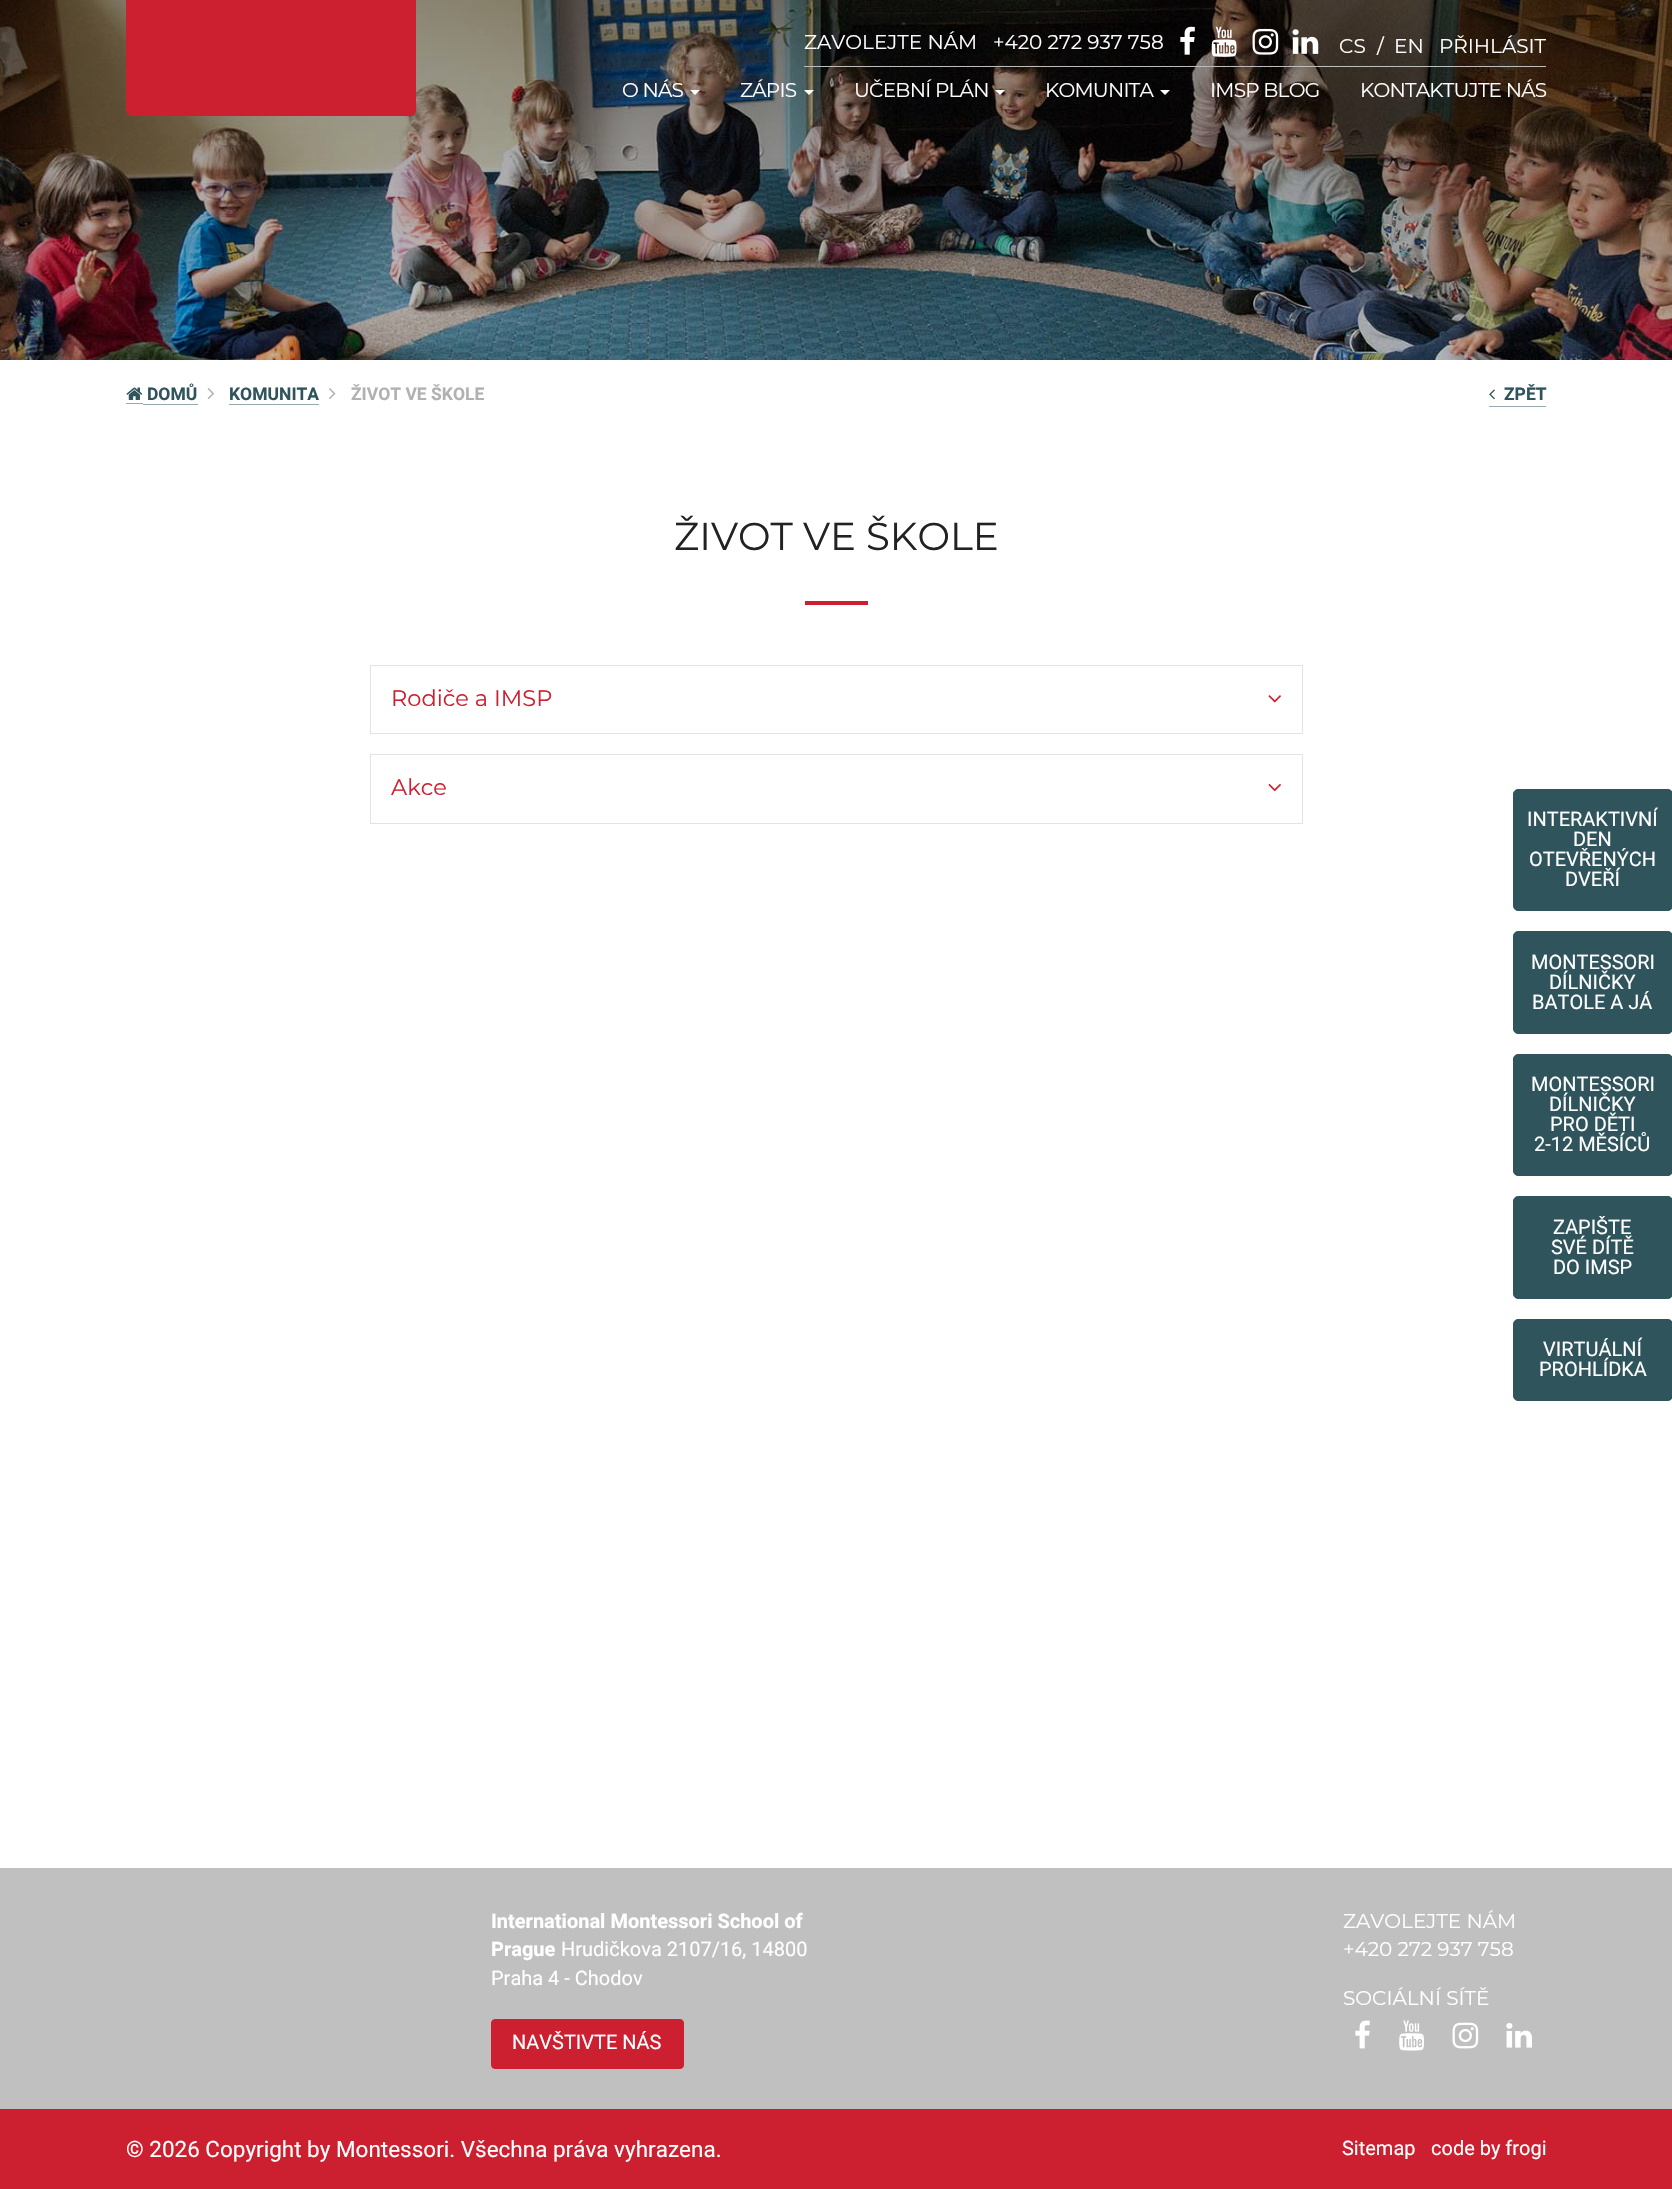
static SkFont makeFont(const char* family, int weight, float size, bool italic = false) {
  SkFontStyle style(weight, SkFontStyle::kNormal_Width,
    italic ? SkFontStyle::kItalic_Slant : SkFontStyle::kUpright_Slant);
  SkFont result(fontMgr->matchFamilyStyle(family, style), size);
  result.setSubpixel(true);
  return result;
}

static void text(SkCanvas* c, const char* s, float x, float y, const SkFont& font, SkColor color) {
  SkPaint ink(SkColor4f::FromColor(color));
  ink.setAntiAlias(true);
  c->drawString(s, x, y, font, ink);
}

static void spacedText(SkCanvas* c, const char* s, float x, float y, const SkFont& font, const SkPaint& ink, float letter, float word) {
  std::vector<SkGlyphID> glyphs(font.countText(s, strlen(s), SkTextEncoding::kUTF8));
  std::vector<float> xs(glyphs.size());
  font.textToGlyphs(s, strlen(s), SkTextEncoding::kUTF8, glyphs);
  font.getXPos(glyphs, xs, x);
  float extra = 0;
  for (size_t i = 0; i < glyphs.size(); i++) {
    xs[i] += extra;
    extra += letter + word * (glyphs[i] == font.unicharToGlyph(' '));
  }
  c->drawTextBlob(SkTextBlob::MakeFromPosHGlyphs(glyphs, xs, y, font), 0, 0, ink);
}

static void box(SkCanvas* c, float l, float t, float r, float b, SkColor color) {
  SkPaint ink(SkColor4f::FromColor(color));
  ink.setAntiAlias(true);
  c->drawRect(SkRect::MakeLTRB(l, t, r, b), ink);
}

static void picture(SkCanvas* c, const char* path, float l, float t, float r, float b) {
  auto image = SkImages::DeferredFromEncodedData(SkData::MakeFromFileName(path));
  c->drawImageRect(image, SkRect::MakeLTRB(l, t, r, b), SkSamplingOptions());
}

void draw(SkCanvas* c) {
  SkPaint paint;
  paint.setAntiAlias(true);
  c->clear(0xffffffff);
  picture(c, "img_05.png", 0, 0, 1672, 360);
  paint.setColor(0xffcc2031);
  c->drawPath(SkPathBuilder().moveTo(129, 3).lineTo(413, 3).lineTo(413, 110).cubicTo(413, 111.5f, 411.5f, 113, 410, 113).lineTo(132, 113).cubicTo(130.5f, 113, 129, 111.5f, 129, 110).close().detach(), paint);
  paint.setStyle(SkPaint::kStroke_Style);
  paint.setStrokeWidth(6);
  c->drawPath(SkPathBuilder().moveTo(129, 3).lineTo(413, 3).lineTo(413, 110).cubicTo(413, 111.5f, 411.5f, 113, 410, 113).lineTo(132, 113).cubicTo(130.5f, 113, 129, 111.5f, 129, 110).close().detach(), paint);
  box(c, 804, 66, 1546, 67, 0xffbdbdbd);
  SkFont face1 = makeFont("Montserrat", 100, 20);
  text(c, "ZAVOLEJTE NÁM", 804, 49, face1, 0xffffffff);
  text(c, "+420 272 937 758", 993, 49, face1, 0xffffffff);
  picture(c, "img_01.png", 1180, 26, 1195, 55);
  picture(c, "img_02.png", 1211, 26, 1237, 57);
  picture(c, "img_03.png", 1252, 28, 1279, 55);
  picture(c, "img_04.png", 1292, 29, 1319, 54);
  text(c, "CS", 1339, 53, face1, 0xffffffff);
  text(c, "/", 1377, 53, face1, 0xffffffff);
  text(c, "EN", 1394, 53, face1, 0xffffffff);
  text(c, "PŘIHLÁSIT", 1439, 53, face1, 0xffffffff);
  paint.setStyle(SkPaint::kFill_Style);
  paint.setColor(0xffffffff);
  spacedText(c, "O NÁS", 622, 97, face1, paint, -0.75f, 0);
  c->drawPath(SkPathBuilder().moveTo(690, 90).lineTo(700, 90).lineTo(695, 95).close().detach(), paint);
  spacedText(c, "ZÁPIS", 740, 97, face1, paint, -0.75f, 0);
  c->drawPath(SkPathBuilder().moveTo(804, 90).lineTo(814, 90).lineTo(809, 95).close().detach(), paint);
  spacedText(c, "UČEBNÍ PLÁN", 854, 97, face1, paint, -0.75f, 0);
  c->drawPath(SkPathBuilder().moveTo(995, 90).lineTo(1005, 90).lineTo(1000, 95).close().detach(), paint);
  spacedText(c, "KOMUNITA", 1045, 97, face1, paint, -0.75f, 0);
  c->drawPath(SkPathBuilder().moveTo(1160, 90).lineTo(1170, 90).lineTo(1165, 95).close().detach(), paint);
  spacedText(c, "IMSP BLOG", 1210, 97, face1, paint, -0.75f, 0);
  spacedText(c, "KONTAKTUJTE NÁS", 1360, 97, face1, paint, -0.75f, 0);
  box(c, 126, 403, 143, 404, 0xff97a9ad);
  box(c, 143, 404, 198, 405, 0xff97a9ad);
  picture(c, "img_06.png", 126, 387, 143, 400);
  SkFont face2 = makeFont("Roboto", 700, 17.5f);
  text(c, "DOMŮ", 147, 400, face2, 0xff2f545c);
  picture(c, "img_07.png", 207, 388, 214, 399);
  text(c, "KOMUNITA", 229, 400, face2, 0xff2f545c);
  box(c, 229, 404, 319, 405, 0xff97a9ad);
  picture(c, "img_08.png", 329, 388, 336, 399);
  text(c, "ŽIVOT VE ŠKOLE", 351, 400, face2, 0xffb1b1b1);
  box(c, 1489, 406, 1546, 407, 0xff97a9ad);
  picture(c, "img_09.png", 1489, 389, 1495, 400);
  text(c, "ZPĚT", 1504, 400, face2, 0xff2f545c);
  SkFont face3 = makeFont("Montserrat", 100, 38.75f);
  text(c, "ŽIVOT VE ŠKOLE", 674, 550, face3, 0xff222222);
  box(c, 805, 601, 868, 605, 0xffcc2031);
  paint.setStyle(SkPaint::kStroke_Style);
  paint.setStrokeWidth(1);
  paint.setColor(0xffe3e3e3);
  c->drawRect(SkRect::MakeLTRB(370.5f, 665.5f, 1302.5f, 733.5f), paint);
  SkFont face4 = makeFont("Montserrat", 100, 22.5f);
  text(c, "Rodiče a IMSP", 391, 706, face4, 0xffcc2031);
  picture(c, "img_10.png", 1268, 695, 1281, 703);
  c->drawRect(SkRect::MakeLTRB(370.5f, 754.5f, 1302.5f, 823.5f), paint);
  text(c, "Akce", 391, 795, face4, 0xffcc2031);
  picture(c, "img_11.png", 1268, 784, 1281, 792);
  paint.setStyle(SkPaint::kFill_Style);
  paint.setColor(0xff2f545c);
  c->drawRoundRect(SkRect::MakeLTRB(1513.5f, 789.5f, 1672.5f, 910.5f), 4.5f, 4.5f, paint);
  paint.setStyle(SkPaint::kStroke_Style);
  c->drawRoundRect(SkRect::MakeLTRB(1513.5f, 789.5f, 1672.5f, 910.5f), 4.5f, 4.5f, paint);
  SkFont face5 = makeFont("Roboto", 400, 20);
  text(c, "INTERAKTIVNÍ", 1527, 826, face5, 0xffffffff);
  text(c, "DEN", 1573, 846, face5, 0xffffffff);
  text(c, "OTEVŘENÝCH", 1529, 866, face5, 0xffffffff);
  text(c, "DVEŘÍ", 1565, 886, face5, 0xffffffff);
  paint.setStyle(SkPaint::kFill_Style);
  c->drawRoundRect(SkRect::MakeLTRB(1513.5f, 931.5f, 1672.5f, 1033.5f), 4.5f, 4.5f, paint);
  paint.setStyle(SkPaint::kStroke_Style);
  c->drawRoundRect(SkRect::MakeLTRB(1513.5f, 931.5f, 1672.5f, 1033.5f), 4.5f, 4.5f, paint);
  text(c, "MONTESSORI", 1531, 969, face5, 0xffffffff);
  text(c, "DÍLNIČKY", 1549, 989, face5, 0xffffffff);
  text(c, "BATOLE A JÁ", 1532, 1009, face5, 0xffffffff);
  paint.setStyle(SkPaint::kFill_Style);
  c->drawRoundRect(SkRect::MakeLTRB(1513.5f, 1054.5f, 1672.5f, 1175.5f), 4.5f, 4.5f, paint);
  paint.setStyle(SkPaint::kStroke_Style);
  c->drawRoundRect(SkRect::MakeLTRB(1513.5f, 1054.5f, 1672.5f, 1175.5f), 4.5f, 4.5f, paint);
  text(c, "MONTESSORI", 1531, 1091, face5, 0xffffffff);
  text(c, "DÍLNIČKY", 1549, 1111, face5, 0xffffffff);
  text(c, "PRO DĚTI", 1550, 1131, face5, 0xffffffff);
  text(c, "2-12 MĚSÍCŮ", 1534, 1151, face5, 0xffffffff);
  paint.setStyle(SkPaint::kFill_Style);
  c->drawRoundRect(SkRect::MakeLTRB(1513.5f, 1196.5f, 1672.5f, 1298.5f), 4.5f, 4.5f, paint);
  paint.setStyle(SkPaint::kStroke_Style);
  c->drawRoundRect(SkRect::MakeLTRB(1513.5f, 1196.5f, 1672.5f, 1298.5f), 4.5f, 4.5f, paint);
  text(c, "ZAPIŠTE", 1553, 1234, face5, 0xffffffff);
  text(c, "SVÉ DÍTĚ", 1551, 1254, face5, 0xffffffff);
  text(c, "DO IMSP", 1553, 1274, face5, 0xffffffff);
  paint.setStyle(SkPaint::kFill_Style);
  c->drawRoundRect(SkRect::MakeLTRB(1513.5f, 1319.5f, 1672.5f, 1400.5f), 4.5f, 4.5f, paint);
  paint.setStyle(SkPaint::kStroke_Style);
  c->drawRoundRect(SkRect::MakeLTRB(1513.5f, 1319.5f, 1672.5f, 1400.5f), 4.5f, 4.5f, paint);
  text(c, "VIRTUÁLNÍ", 1543, 1356, face5, 0xffffffff);
  text(c, "PROHLÍDKA", 1539, 1376, face5, 0xffffffff);
  box(c, 0, 1868, 1672, 2109, 0xffc0c0c0);
  SkFont face6 = makeFont("Roboto", 700, 20);
  text(c, "International Montessori School of", 491, 1928, face6, 0xffffffff);
  text(c, "Prague", 491, 1956, face6, 0xffffffff);
  text(c, "Hrudičkova 2107/16, 14800", 561, 1956, face5, 0xffffffff);
  text(c, "Praha 4 - Chodov", 491, 1985, face5, 0xffffffff);
  paint.setStyle(SkPaint::kFill_Style);
  paint.setColor(0xffcc2031);
  c->drawRoundRect(SkRect::MakeLTRB(491.5f, 2019.5f, 683.5f, 2068.5f), 3.5f, 3.5f, paint);
  paint.setStyle(SkPaint::kStroke_Style);
  c->drawRoundRect(SkRect::MakeLTRB(491.5f, 2019.5f, 683.5f, 2068.5f), 3.5f, 3.5f, paint);
  text(c, "NAVŠTIVTE NÁS", 512, 2049, face5, 0xffffffff);
  text(c, "ZAVOLEJTE NÁM", 1343, 1928, face1, 0xffffffff);
  text(c, "+420 272 937 758", 1343, 1956, face1, 0xffffffff);
  text(c, "SOCIÁLNÍ SÍTĚ", 1343, 2005, face1, 0xffffffff);
  picture(c, "img_12.png", 1355, 2020, 1370, 2049);
  picture(c, "img_13.png", 1399, 2020, 1424, 2051);
  picture(c, "img_14.png", 1452, 2022, 1479, 2049);
  picture(c, "img_15.png", 1506, 2023, 1532, 2048);
  box(c, 0, 2109, 1672, 2189, 0xffcc2031);
  SkFont face7 = makeFont("Roboto", 400, 22.5f);
  text(c, "© 2026 Copyright by Montessori. Všechna práva vyhrazena.", 126, 2157, face7, 0xffffffff);
  text(c, "Sitemap", 1342, 2155, face5, 0xffffffff);
  text(c, "code by frogi", 1431, 2155, face5, 0xffffffff);
}
